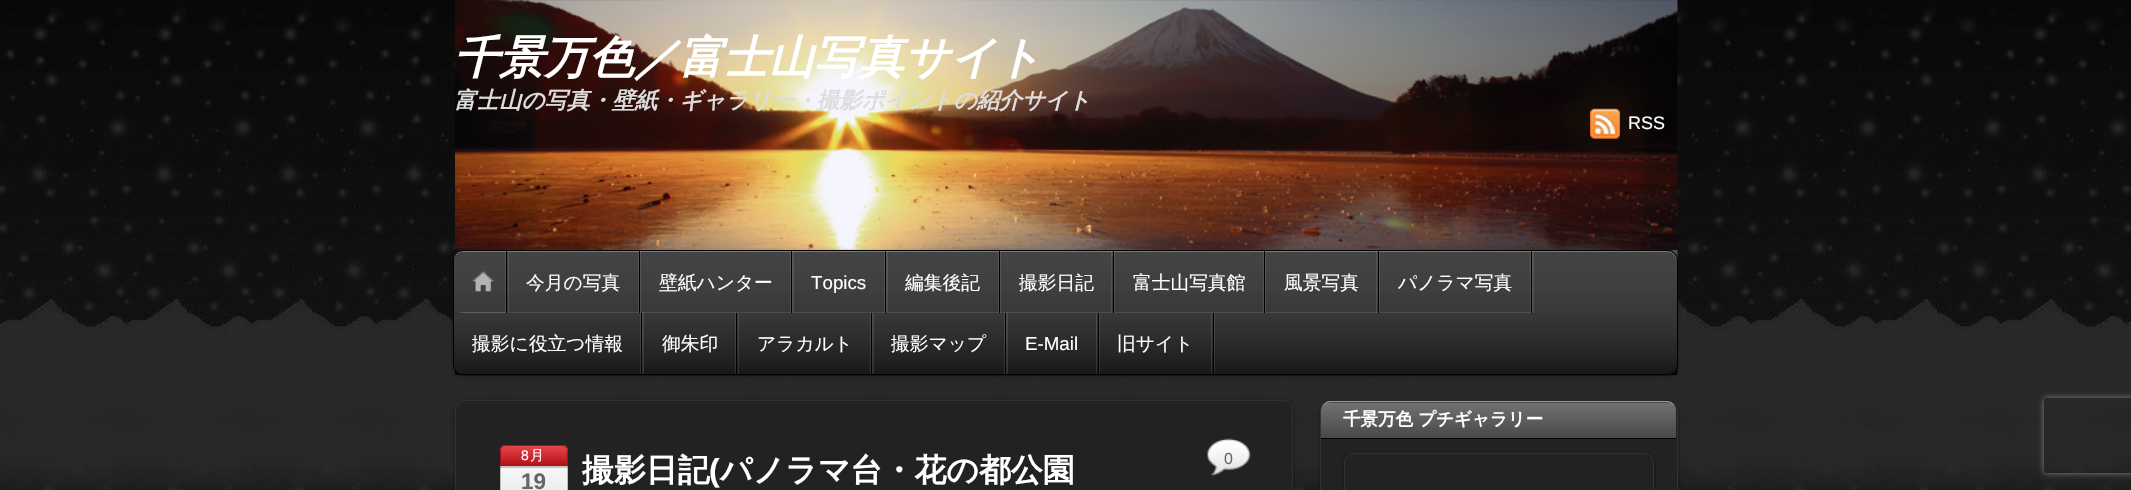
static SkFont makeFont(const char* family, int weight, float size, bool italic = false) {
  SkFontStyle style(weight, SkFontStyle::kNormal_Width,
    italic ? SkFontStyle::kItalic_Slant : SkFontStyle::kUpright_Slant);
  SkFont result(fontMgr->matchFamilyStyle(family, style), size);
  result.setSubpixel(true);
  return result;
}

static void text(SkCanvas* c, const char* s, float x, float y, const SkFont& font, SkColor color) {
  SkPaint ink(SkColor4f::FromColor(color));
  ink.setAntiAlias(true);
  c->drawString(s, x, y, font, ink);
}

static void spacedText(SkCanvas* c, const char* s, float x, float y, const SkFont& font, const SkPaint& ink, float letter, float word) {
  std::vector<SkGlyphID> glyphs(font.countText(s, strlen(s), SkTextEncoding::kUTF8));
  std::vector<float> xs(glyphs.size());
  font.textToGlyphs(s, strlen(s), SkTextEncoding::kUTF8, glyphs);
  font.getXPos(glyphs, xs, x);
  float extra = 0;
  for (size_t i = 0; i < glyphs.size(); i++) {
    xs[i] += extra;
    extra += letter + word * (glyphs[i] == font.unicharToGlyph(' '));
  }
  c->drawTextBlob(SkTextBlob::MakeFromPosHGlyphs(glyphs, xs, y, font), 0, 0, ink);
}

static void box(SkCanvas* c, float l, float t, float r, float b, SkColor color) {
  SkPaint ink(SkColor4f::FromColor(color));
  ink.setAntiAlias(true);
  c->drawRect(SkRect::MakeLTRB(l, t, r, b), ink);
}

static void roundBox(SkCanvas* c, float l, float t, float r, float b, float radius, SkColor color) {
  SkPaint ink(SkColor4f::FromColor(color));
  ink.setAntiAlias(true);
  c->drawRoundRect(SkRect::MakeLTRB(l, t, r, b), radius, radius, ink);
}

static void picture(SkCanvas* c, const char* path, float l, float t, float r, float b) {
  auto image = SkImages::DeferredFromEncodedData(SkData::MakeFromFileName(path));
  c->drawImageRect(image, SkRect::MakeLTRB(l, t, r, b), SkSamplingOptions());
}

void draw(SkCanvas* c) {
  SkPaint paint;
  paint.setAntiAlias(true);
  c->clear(0xffffffff);
  picture(c, "img_01.png", 0, 0, 2131, 490);
  picture(c, "img_02.png", 455, 0, 1678, 375);
  SkFont face1 = makeFont("WenQuanYi Zen Hei", 700, 45, true);
  text(c, "千景万色／富士山写真サイト", 454, 73, face1, 0xffffffff);
  SkFont face2 = makeFont("WenQuanYi Zen Hei", 700, 22.5f, true);
  text(c, "富士山の写真・壁紙・ギャラリー・撮影ポイントの紹介サイト", 454, 108, face2, 0xffdddddd);
  picture(c, "img_03.png", 1590, 108, 1620, 139);
  SkFont face3 = makeFont("Liberation Sans", 400, 18);
  text(c, "RSS", 1628, 129, face3, 0xffffffff);
  paint.setColor(0x4d000000);
  paint.setMaskFilter(SkMaskFilter::MakeBlur(kNormal_SkBlurStyle, 2));
  c->drawRoundRect(SkRect::MakeLTRB(453, 251, 1678, 376), 10, 10, paint);
  paint.setMaskFilter(nullptr);
  c->drawPath(SkPathBuilder().moveTo(454, 370).cubicTo(455, 374, 459, 376, 463, 376).lineTo(1668, 376).cubicTo(1674, 376, 1678, 372, 1678, 366).lineTo(1678, 261).cubicTo(1678, 259, 1678, 258, 1677, 256).lineTo(1678, 260).lineTo(1678, 365).cubicTo(1678, 371, 1673, 375, 1668, 375).lineTo(462, 375).cubicTo(459, 375, 456, 373, 454, 370).close().detach(), paint);
  roundBox(c, 453, 250, 1678, 375, 10, 0xff222222);
  c->save();
  c->clipPath(SkPathBuilder().moveTo(463, 250).lineTo(1668, 250).cubicTo(1673.5f, 250, 1678, 254.5f, 1678, 260).lineTo(1678, 365).cubicTo(1678, 370.5f, 1673.5f, 375, 1668, 375).lineTo(463, 375).cubicTo(457.5f, 375, 453, 370.5f, 453, 365).lineTo(453, 260).cubicTo(453, 254.5f, 457.5f, 250, 463, 250).close().detach(), true);
  {
    const SkColor colors[] = {0x26ffffff, 0x4d000000};
    const float stops[] = {0, 1};
    const SkPoint ends[] = {{1065, 251}, {1065, 374}};
    paint.setShader(SkGradientShader::MakeLinear(ends, colors, stops, 2, SkTileMode::kClamp));
    paint.setAlpha(255);
  }
  c->drawRect(SkRect::MakeLTRB(453, 251, 1678, 374), paint);
  c->restore();
  paint.setShader(nullptr);
  paint.setColor(0xff7b7b7b);
  c->drawPath(SkPathBuilder().moveTo(462, 252).lineTo(1668, 252).cubicTo(1672, 252, 1676, 256, 1676, 261).lineTo(1676, 260).cubicTo(1676, 255, 1672, 251, 1667, 251).lineTo(463, 251).cubicTo(458, 251, 454, 255, 454, 260).lineTo(454, 261).cubicTo(454, 256, 458, 252, 462, 252).close().detach(), paint);
  paint.setStyle(SkPaint::kStroke_Style);
  paint.setStrokeWidth(1);
  paint.setColor(0xff000000);
  c->drawRoundRect(SkRect::MakeLTRB(453.5f, 250.5f, 1677.5f, 374.5f), 9.5f, 9.5f, paint);
  paint.setStyle(SkPaint::kFill_Style);
  paint.setColor(0x1affffff);
  c->drawPath(SkPathBuilder().moveTo(463, 251).lineTo(461, 251).lineTo(508, 251).lineTo(508, 312).lineTo(460, 312).lineTo(463, 313).lineTo(509, 313).lineTo(509, 251).close().detach(), paint);
  c->drawPath(SkPathBuilder().moveTo(458, 312).cubicTo(459, 312, 460, 313, 462, 313).lineTo(506, 313).lineTo(506, 251).lineTo(505, 251).lineTo(505, 312).close().detach(), paint);
  box(c, 506, 251, 507, 313, 0xff000000);
  picture(c, "img_04.png", 472, 271, 494, 292);
  c->drawPath(SkPathBuilder().moveTo(509, 251).lineTo(640, 251).lineTo(640, 312).lineTo(509, 312).lineTo(509, 313).lineTo(641, 313).lineTo(641, 251).close().detach(), paint);
  box(c, 638, 251, 639, 313, 0x1affffff);
  box(c, 639, 251, 640, 313, 0xff000000);
  SkFont face4 = makeFont("WenQuanYi Zen Hei", 500, 18.75f);
  text(c, "今月の写真", 526, 289, face4, 0xffffffff);
  c->drawPath(SkPathBuilder().moveTo(641, 251).lineTo(792, 251).lineTo(792, 312).lineTo(641, 312).lineTo(641, 313).lineTo(794, 313).lineTo(794, 251).close().detach(), paint);
  box(c, 790, 251, 791, 313, 0x1affffff);
  box(c, 791, 251, 792, 313, 0xff000000);
  text(c, "壁紙ハンター", 659, 289, face4, 0xffffffff);
  c->drawPath(SkPathBuilder().moveTo(794, 251).lineTo(886, 251).lineTo(886, 312).lineTo(794, 312).lineTo(794, 313).lineTo(888, 313).lineTo(888, 251).close().detach(), paint);
  box(c, 884, 251, 885, 313, 0x1affffff);
  box(c, 885, 251, 886, 313, 0xff000000);
  SkFont face5 = makeFont("Liberation Sans", 400, 18.75f);
  text(c, "Topics", 811, 289, face5, 0xffffffff);
  c->drawPath(SkPathBuilder().moveTo(888, 251).lineTo(1000, 251).lineTo(1000, 312).lineTo(888, 312).lineTo(888, 313).lineTo(1001, 313).lineTo(1001, 251).close().detach(), paint);
  box(c, 998, 251, 999, 313, 0x1affffff);
  box(c, 999, 251, 1000, 313, 0xff000000);
  text(c, "編集後記", 905, 289, face4, 0xffffffff);
  c->drawPath(SkPathBuilder().moveTo(1001, 251).lineTo(1114, 251).lineTo(1114, 312).lineTo(1001, 312).lineTo(1001, 313).lineTo(1115, 313).lineTo(1115, 251).close().detach(), paint);
  box(c, 1111, 251, 1112, 313, 0x1affffff);
  box(c, 1113, 251, 1114, 313, 0xff000000);
  text(c, "撮影日記", 1019, 289, face4, 0xffffffff);
  c->drawPath(SkPathBuilder().moveTo(1115, 251).lineTo(1265, 251).lineTo(1265, 312).lineTo(1115, 312).lineTo(1115, 313).lineTo(1266, 313).lineTo(1266, 251).close().detach(), paint);
  box(c, 1263, 251, 1264, 313, 0x1affffff);
  box(c, 1264, 251, 1265, 313, 0xff000000);
  text(c, "富士山写真館", 1133, 289, face4, 0xffffffff);
  c->drawPath(SkPathBuilder().moveTo(1266, 251).lineTo(1379, 251).lineTo(1379, 312).lineTo(1266, 312).lineTo(1266, 313).lineTo(1380, 313).lineTo(1380, 251).close().detach(), paint);
  box(c, 1376, 251, 1377, 313, 0x1affffff);
  box(c, 1378, 251, 1379, 313, 0xff000000);
  text(c, "風景写真", 1284, 289, face4, 0xffffffff);
  c->drawPath(SkPathBuilder().moveTo(1380, 251).lineTo(1532, 251).lineTo(1532, 312).lineTo(1380, 312).lineTo(1380, 313).lineTo(1534, 313).lineTo(1534, 251).close().detach(), paint);
  box(c, 1530, 251, 1531, 313, 0x1affffff);
  box(c, 1531, 251, 1532, 313, 0xff000000);
  text(c, "パノラマ写真", 1398, 289, face4, 0xffffffff);
  c->drawPath(SkPathBuilder().moveTo(455, 374).lineTo(644, 374).lineTo(644, 313).lineTo(642, 313).lineTo(642, 374).close().detach(), paint);
  box(c, 640, 313, 641, 374, 0x1affffff);
  box(c, 641, 313, 642, 374, 0xff000000);
  text(c, "撮影に役立つ情報", 472, 350, face4, 0xffffffff);
  c->drawPath(SkPathBuilder().moveTo(644, 374).lineTo(739, 374).lineTo(739, 313).lineTo(738, 313).lineTo(738, 374).close().detach(), paint);
  box(c, 735, 313, 736, 374, 0x1affffff);
  box(c, 736, 313, 737, 374, 0xff000000);
  text(c, "御朱印", 662, 350, face4, 0xffffffff);
  c->drawPath(SkPathBuilder().moveTo(739, 374).lineTo(874, 374).lineTo(874, 313).lineTo(872, 313).lineTo(872, 374).close().detach(), paint);
  box(c, 870, 313, 871, 374, 0x1affffff);
  box(c, 871, 313, 872, 374, 0xff000000);
  text(c, "アラカルト", 757, 350, face4, 0xffffffff);
  c->drawPath(SkPathBuilder().moveTo(874, 374).lineTo(1008, 374).lineTo(1008, 313).lineTo(1006, 313).lineTo(1006, 374).close().detach(), paint);
  box(c, 1004, 313, 1005, 374, 0x1affffff);
  box(c, 1005, 313, 1006, 374, 0xff000000);
  text(c, "撮影マップ", 891, 350, face4, 0xffffffff);
  c->drawPath(SkPathBuilder().moveTo(1008, 374).lineTo(1100, 374).lineTo(1100, 313).lineTo(1099, 313).lineTo(1099, 374).close().detach(), paint);
  box(c, 1096, 313, 1097, 374, 0x1affffff);
  box(c, 1098, 313, 1099, 374, 0xff000000);
  text(c, "E-Mail", 1025, 350, face5, 0xffffffff);
  c->drawPath(SkPathBuilder().moveTo(1100, 374).lineTo(1215, 374).lineTo(1215, 313).lineTo(1214, 313).lineTo(1214, 374).close().detach(), paint);
  box(c, 1211, 313, 1212, 374, 0x1affffff);
  box(c, 1213, 313, 1214, 374, 0xff000000);
  text(c, "旧サイト", 1117, 350, face4, 0xffffffff);
  paint.setColor(0x66000000);
  paint.setMaskFilter(SkMaskFilter::MakeBlur(kNormal_SkBlurStyle, 2));
  c->drawRoundRect(SkRect::MakeLTRB(1320, 403, 1678, 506), 10, 10, paint);
  paint.setMaskFilter(nullptr);
  paint.setColor(0xff222222);
  c->drawRoundRect(SkRect::MakeLTRB(1320.5f, 401.5f, 1677.5f, 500.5f), 9.5f, 9.5f, paint);
  paint.setStyle(SkPaint::kStroke_Style);
  paint.setColor(0xff323232);
  c->drawRoundRect(SkRect::MakeLTRB(1320.5f, 401.5f, 1677.5f, 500.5f), 9.5f, 9.5f, paint);
  paint.setStyle(SkPaint::kFill_Style);
  paint.setColor(0xff333333);
  c->drawPath(SkPathBuilder().moveTo(1331, 401).lineTo(1666, 401).cubicTo(1671.5f, 401, 1676, 405.5f, 1676, 411).lineTo(1676, 439).lineTo(1321, 439).lineTo(1321, 411).cubicTo(1321, 405.5f, 1325.5f, 401, 1331, 401).close().detach(), paint);
  c->save();
  c->clipPath(SkPathBuilder().moveTo(1331, 401).lineTo(1666, 401).cubicTo(1671.5f, 401, 1676, 405.5f, 1676, 411).lineTo(1676, 439).lineTo(1321, 439).lineTo(1321, 411).cubicTo(1321, 405.5f, 1325.5f, 401, 1331, 401).close().detach(), true);
  {
    const SkColor colors[] = {0xff707070, 0xff474747};
    const float stops[] = {0, 1};
    const SkPoint ends[] = {{1499, 368}, {1499, 403}};
    paint.setShader(SkGradientShader::MakeLinear(ends, colors, stops, 2, SkTileMode::kClamp));
    paint.setAlpha(255);
  }
  c->drawRect(SkRect::MakeLTRB(1321, 401, 1676, 403), paint);
  {
    const SkColor colors[] = {0x4dffffff, 0x1affffff};
    const float stops[] = {0, 1};
    const SkPoint ends[] = {{1499, 403}, {1499, 438}};
    paint.setShader(SkGradientShader::MakeLinear(ends, colors, stops, 2, SkTileMode::kClamp));
    paint.setAlpha(255);
  }
  c->drawRect(SkRect::MakeLTRB(1321, 403, 1676, 438), paint);
  c->restore();
  paint.setShader(nullptr);
  paint.setColor(0xff989898);
  c->drawPath(SkPathBuilder().moveTo(1331, 402).cubicTo(1327, 402, 1322, 405, 1321, 409).cubicTo(1322, 405, 1325, 402, 1329, 401).lineTo(1668, 401).cubicTo(1673, 402, 1676, 406, 1676, 411).cubicTo(1676, 406, 1672, 402, 1666, 402).close().detach(), paint);
  box(c, 1321, 438, 1676, 439, 0xff000000);
  SkFont face6 = makeFont("WenQuanYi Zen Hei", 700, 17.5f);
  text(c, "千景万色 プチギャラリー", 1343, 425, face6, 0xffffffff);
  paint.setColor(0x66000000);
  paint.setMaskFilter(SkMaskFilter::MakeBlur(kNormal_SkBlurStyle, 2));
  c->drawRoundRect(SkRect::MakeLTRB(1344, 454, 1654, 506), 10, 10, paint);
  paint.setMaskFilter(nullptr);
  paint.setColor(0xff222222);
  c->drawRoundRect(SkRect::MakeLTRB(1344.5f, 453.5f, 1653.5f, 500.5f), 9.5f, 9.5f, paint);
  paint.setStyle(SkPaint::kStroke_Style);
  paint.setColor(0xff323232);
  c->drawRoundRect(SkRect::MakeLTRB(1344.5f, 453.5f, 1653.5f, 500.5f), 9.5f, 9.5f, paint);
  paint.setStyle(SkPaint::kFill_Style);
  paint.setColor(0x66000000);
  paint.setMaskFilter(SkMaskFilter::MakeBlur(kNormal_SkBlurStyle, 2));
  c->drawRoundRect(SkRect::MakeLTRB(455, 401, 1293, 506), 10, 10, paint);
  paint.setMaskFilter(nullptr);
  paint.setColor(0xff222222);
  c->drawRoundRect(SkRect::MakeLTRB(455.5f, 400.5f, 1292.5f, 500.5f), 9.5f, 9.5f, paint);
  paint.setStyle(SkPaint::kStroke_Style);
  paint.setColor(0xff323232);
  c->drawRoundRect(SkRect::MakeLTRB(455.5f, 400.5f, 1292.5f, 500.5f), 9.5f, 9.5f, paint);
  roundBox(c, 500, 445, 568, 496, 6, 0xffffffff);
  paint.setStyle(SkPaint::kFill_Style);
  {
    const SkColor colors[] = {0x00000000, 0x1a000000};
    const float stops[] = {0, 1};
    const SkPoint ends[] = {{534, 446}, {534, 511}};
    paint.setShader(SkGradientShader::MakeLinear(ends, colors, stops, 2, SkTileMode::kClamp));
    paint.setAlpha(255);
  }
  c->drawRect(SkRect::MakeLTRB(501, 466, 567, 490), paint);
  paint.setStyle(SkPaint::kStroke_Style);
  paint.setShader(nullptr);
  paint.setColor(0xffbebebe);
  c->drawRoundRect(SkRect::MakeLTRB(500.5f, 445.5f, 567.5f, 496.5f), 5.5f, 5.5f, paint);
  paint.setStyle(SkPaint::kFill_Style);
  paint.setColor(0x33000000);
  c->drawPath(SkPathBuilder().moveTo(500, 466).lineTo(500, 468).lineTo(568, 468).cubicTo(568, 464, 569, 452, 567, 448).cubicTo(569, 452, 568, 462, 568, 466).close().detach(), paint);
  paint.setColor(0xffe0161d);
  c->drawPath(SkPathBuilder().moveTo(506, 445).lineTo(562, 445).cubicTo(565.5f, 445, 568, 447.5f, 568, 451).lineTo(568, 466).lineTo(500, 466).lineTo(500, 451).cubicTo(500, 447.5f, 502.5f, 445, 506, 445).close().detach(), paint);
  c->save();
  c->clipPath(SkPathBuilder().moveTo(506, 445).lineTo(562, 445).cubicTo(565.5f, 445, 568, 447.5f, 568, 451).lineTo(568, 466).lineTo(500, 466).lineTo(500, 451).cubicTo(500, 447.5f, 502.5f, 445, 506, 445).close().detach(), true);
  {
    const SkColor colors[] = {0x33ffffff, 0x33000000};
    const float stops[] = {0, 1};
    const SkPoint ends[] = {{534, 446}, {534, 465}};
    paint.setShader(SkGradientShader::MakeLinear(ends, colors, stops, 2, SkTileMode::kClamp));
    paint.setAlpha(255);
  }
  c->drawRect(SkRect::MakeLTRB(500, 446, 568, 465), paint);
  c->restore();
  paint.setStyle(SkPaint::kStroke_Style);
  paint.setShader(nullptr);
  paint.setColor(0xffa11216);
  c->drawPath(SkPathBuilder().moveTo(506, 445.5f).lineTo(562, 445.5f).cubicTo(565, 445.5f, 567.5f, 448, 567.5f, 451).lineTo(567.5f, 465.5f).lineTo(500.5f, 465.5f).lineTo(500.5f, 451).cubicTo(500.5f, 448, 503, 445.5f, 506, 445.5f).close().detach(), paint);
  SkFont face7 = makeFont("Liberation Sans", 400, 14);
  paint.setStyle(SkPaint::kFill_Style);
  paint.setColor(0xffffffff);
  spacedText(c, "8", 521, 460, face7, paint, 1, 0);
  SkFont face8 = makeFont("WenQuanYi Zen Hei", 500, 14);
  spacedText(c, "月", 530, 460, face8, paint, 1, 0);
  SkFont face9 = makeFont("Liberation Sans", 700, 22.5f);
  text(c, "19", 521, 489, face9, 0xff666666);
  SkFont face10 = makeFont("WenQuanYi Zen Hei", 700, 31.9f);
  text(c, "撮影日記", 582, 481, face10, 0xffffffff);
  SkFont face11 = makeFont("Liberation Sans", 700, 31.9f);
  text(c, "(", 709, 481, face11, 0xffffffff);
  text(c, "パノラマ台・花の都公園", 720, 481, face10, 0xffffffff);
  picture(c, "img_05.png", 1207, 438, 1251, 476);
  SkFont face12 = makeFont("Liberation Sans", 400, 16);
  text(c, "0", 1224, 464, face12, 0xff666666);
  c->save();
  c->clipPath(SkPathBuilder(SkPathFillType::kEvenOdd).moveTo(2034, 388).lineTo(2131, 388).lineTo(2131, 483).lineTo(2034, 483).close().moveTo(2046.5f, 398).lineTo(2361.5f, 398).cubicTo(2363, 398, 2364, 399, 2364, 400.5f).lineTo(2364, 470.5f).cubicTo(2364, 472, 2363, 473, 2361.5f, 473).lineTo(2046.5f, 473).cubicTo(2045, 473, 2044, 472, 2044, 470.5f).lineTo(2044, 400.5f).cubicTo(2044, 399, 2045, 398, 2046.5f, 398).close().detach(), true);
  paint.setColor(0xff808080);
  paint.setMaskFilter(SkMaskFilter::MakeBlur(kNormal_SkBlurStyle, 3));
  c->drawRoundRect(SkRect::MakeLTRB(2044, 398, 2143, 473), 2.5f, 2.5f, paint);
  paint.setMaskFilter(nullptr);
  c->restore();
}
